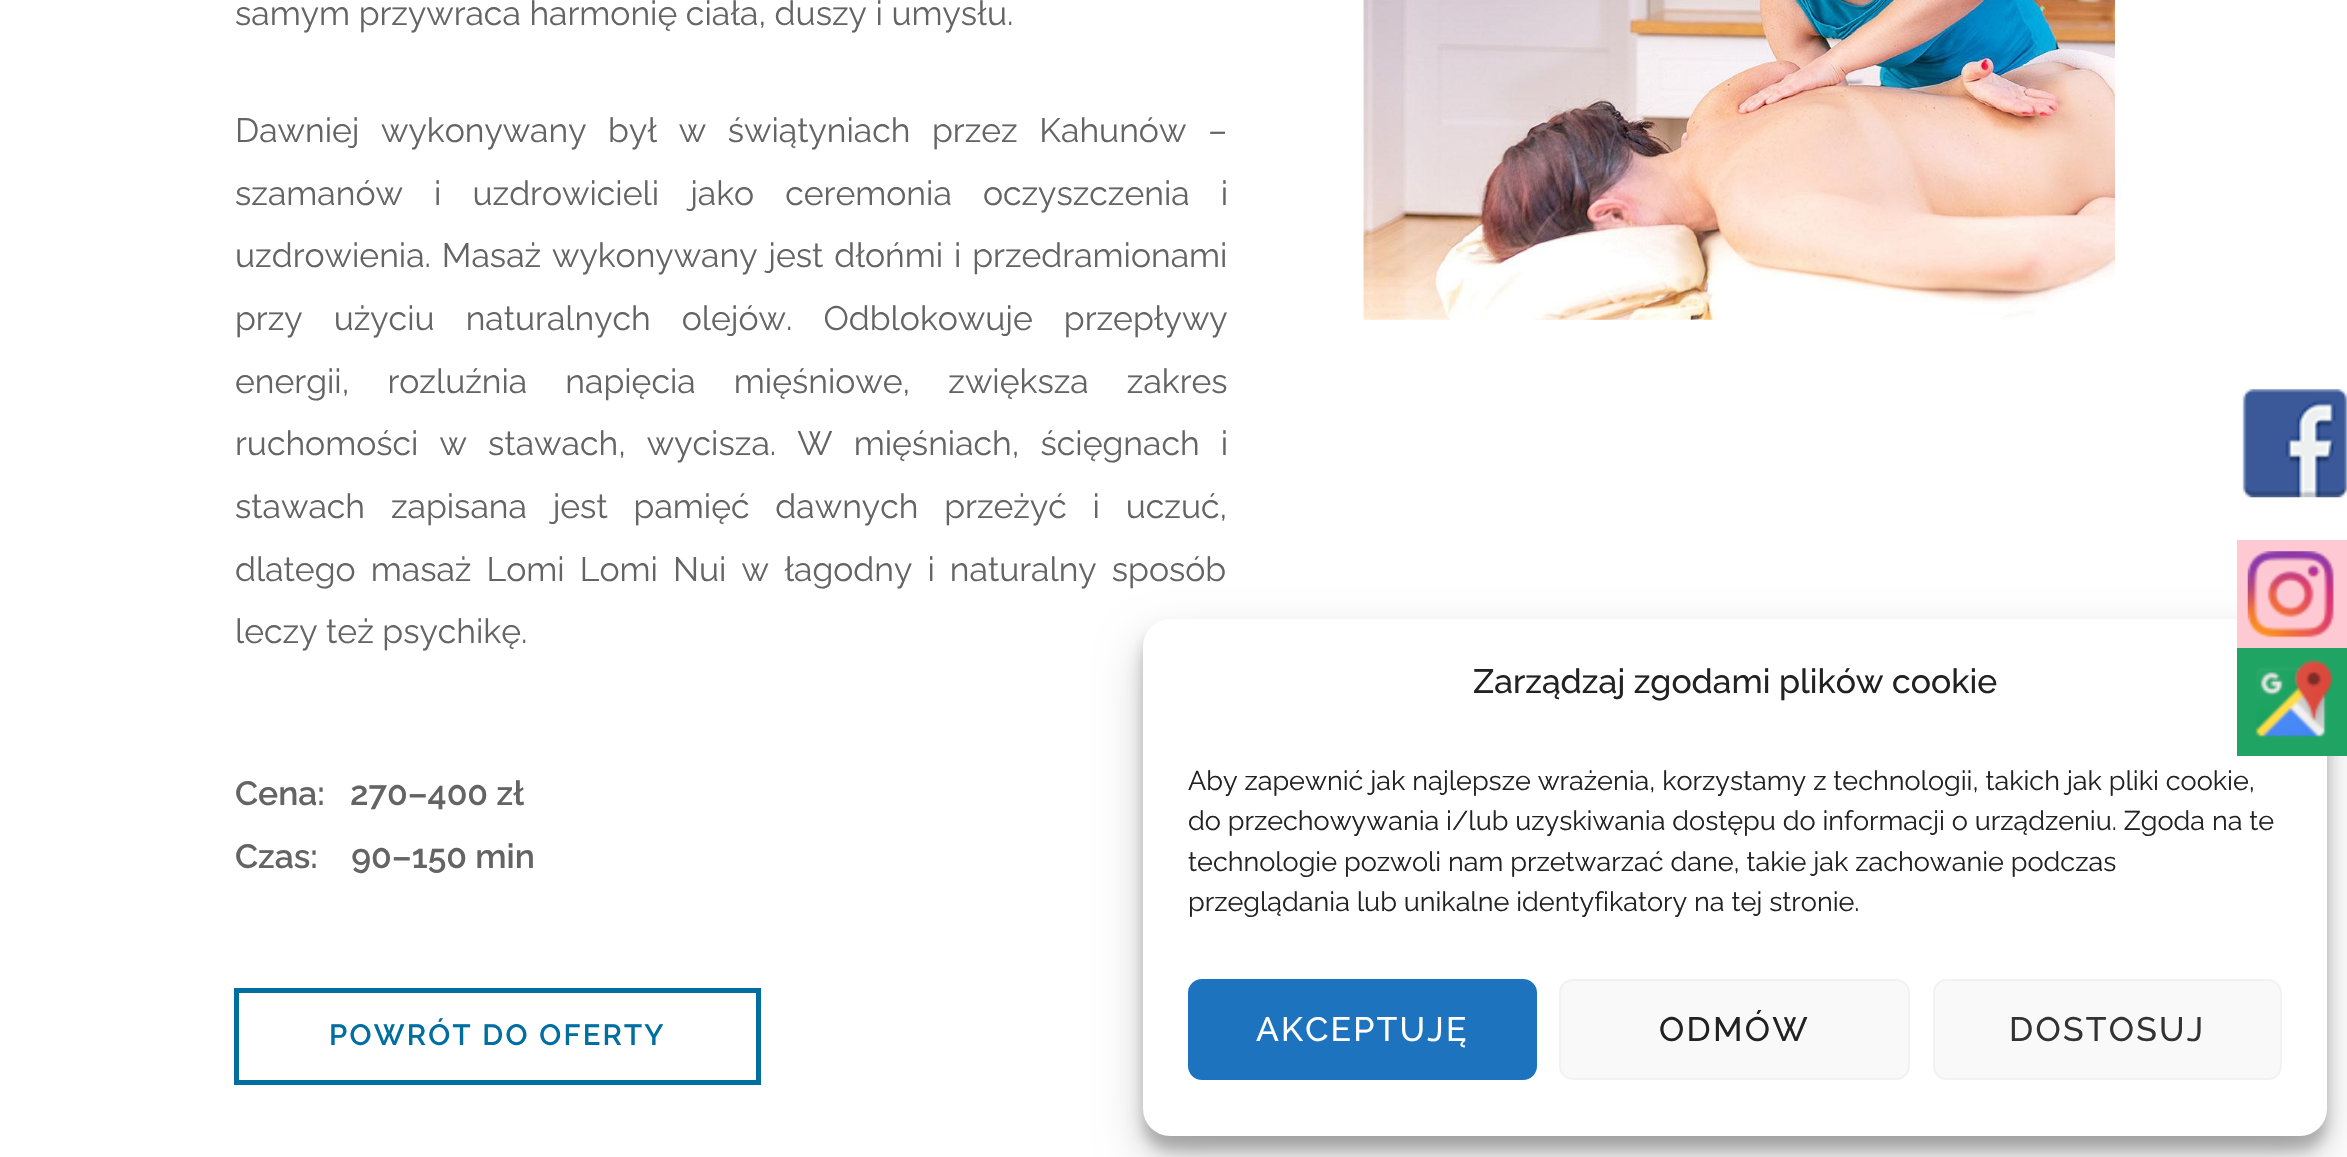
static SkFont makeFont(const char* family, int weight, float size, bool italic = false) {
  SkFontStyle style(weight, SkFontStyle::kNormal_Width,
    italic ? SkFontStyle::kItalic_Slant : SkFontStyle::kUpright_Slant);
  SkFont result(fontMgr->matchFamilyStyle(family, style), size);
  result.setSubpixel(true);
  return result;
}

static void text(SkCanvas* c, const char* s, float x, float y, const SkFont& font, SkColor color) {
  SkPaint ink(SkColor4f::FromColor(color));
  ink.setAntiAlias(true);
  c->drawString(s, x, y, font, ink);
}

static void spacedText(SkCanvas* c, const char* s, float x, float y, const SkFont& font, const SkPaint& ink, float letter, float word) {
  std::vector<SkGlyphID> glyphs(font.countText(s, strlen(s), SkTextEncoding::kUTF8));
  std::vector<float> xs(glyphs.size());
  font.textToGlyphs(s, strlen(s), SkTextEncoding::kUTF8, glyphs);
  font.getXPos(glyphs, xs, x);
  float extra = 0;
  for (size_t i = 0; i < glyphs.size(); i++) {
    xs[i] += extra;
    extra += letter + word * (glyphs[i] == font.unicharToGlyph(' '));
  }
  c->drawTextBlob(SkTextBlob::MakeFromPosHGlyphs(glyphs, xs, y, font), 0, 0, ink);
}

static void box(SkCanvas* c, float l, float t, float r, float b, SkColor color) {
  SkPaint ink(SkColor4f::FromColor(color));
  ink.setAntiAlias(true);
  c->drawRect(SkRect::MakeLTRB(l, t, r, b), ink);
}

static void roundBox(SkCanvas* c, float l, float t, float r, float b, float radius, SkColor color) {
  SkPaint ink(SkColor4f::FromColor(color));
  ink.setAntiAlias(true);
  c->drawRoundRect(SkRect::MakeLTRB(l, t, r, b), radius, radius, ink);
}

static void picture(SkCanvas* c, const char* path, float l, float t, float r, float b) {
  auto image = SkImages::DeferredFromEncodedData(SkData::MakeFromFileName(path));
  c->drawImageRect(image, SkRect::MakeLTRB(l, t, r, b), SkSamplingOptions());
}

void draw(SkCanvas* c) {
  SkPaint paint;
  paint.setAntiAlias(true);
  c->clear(0xffffffff);
  SkFont face1 = makeFont("Raleway", 400, 33.75f);
  text(c, "samym przywraca harmonię ciała, duszy i umysłu.", 235, 25, face1, 0xff646464);
  paint.setColor(0xff646464);
  spacedText(c, "Dawniej wykonywany był w świątyniach przez Kahunów –", 235, 142, face1, paint, 0, 13);
  spacedText(c, "szamanów i uzdrowicieli jako ceremonia oczyszczenia i", 235, 205, face1, paint, 0, 22.5f);
  spacedText(c, "uzdrowienia. Masaż wykonywany jest dłońmi i przedramionami", 235, 267, face1, paint, 0, 2.25f);
  spacedText(c, "przy użyciu naturalnych olejów. Odblokowuje przepływy", 235, 330, face1, paint, 0, 22.5f);
  spacedText(c, "energii, rozluźnia napięcia mięśniowe, zwiększa zakres", 235, 393, face1, paint, 0, 29.5f);
  spacedText(c, "ruchomości w stawach, wycisza. W mięśniach, ścięgnach i", 235, 455, face1, paint, 0, 12.5f);
  spacedText(c, "stawach zapisana jest pamięć dawnych przeżyć i uczuć,", 235, 518, face1, paint, 0, 17.25f);
  spacedText(c, "dlatego masaż Lomi Lomi Nui w łagodny i naturalny sposób", 235, 581, face1, paint, 0, 6.5f);
  text(c, "leczy też psychikę.", 235, 643, face1, 0xff646464);
  SkFont face2 = makeFont("Raleway", 600, 33.75f);
  text(c, "Cena:   270–400 zł", 235, 805, face2, 0xff646464);
  text(c, "Czas:    90–150 min", 235, 868, face2, 0xff646464);
  paint.setStyle(SkPaint::kStroke_Style);
  paint.setStrokeWidth(5);
  paint.setColor(0xff006ea0);
  c->drawRect(SkRect::MakeLTRB(236.5f, 990.5f, 758.5f, 1082.5f), paint);
  SkFont face3 = makeFont("Raleway", 600, 29.25f);
  paint.setStyle(SkPaint::kFill_Style);
  spacedText(c, "POWRÓT DO OFERTY", 329, 1045, face3, paint, 2.25f, 0);
  picture(c, "img_01.png", 1363, 0, 2115, 320);
  paint.setColor(0x3b000000);
  paint.setMaskFilter(SkMaskFilter::MakeBlur(kNormal_SkBlurStyle, 7));
  c->drawRoundRect(SkRect::MakeLTRB(1143, 632, 2327, 1150), 27, 27, paint);
  paint.setMaskFilter(nullptr);
  paint.setColor(0x30000000);
  paint.setMaskFilter(SkMaskFilter::MakeBlur(kNormal_SkBlurStyle, 22.5f));
  c->drawRoundRect(SkRect::MakeLTRB(1143, 641, 2327, 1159), 27, 27, paint);
  paint.setMaskFilter(nullptr);
  roundBox(c, 1143, 619, 2327, 1136, 27, 0xffffffff);
  box(c, 2237, 540, 2347, 648, 0xffffc9d3);
  picture(c, "img_02.png", 2247, 551, 2334, 638);
  box(c, 2237, 648, 2347, 756, 0xff20a464);
  picture(c, "img_03.png", 2255, 659, 2334, 738);
  picture(c, "img_04.png", 2242, 389, 2347, 498);
  SkFont face4 = makeFont("Raleway", 500, 33.75f);
  text(c, "Zarządzaj zgodami plików cookie", 1473, 693, face4, 0xff222222);
  SkFont face5 = makeFont("Raleway", 400, 27);
  text(c, "Aby zapewnić jak najlepsze wrażenia, korzystamy z technologii, takich jak pliki cookie,", 1188, 790, face5, 0xff222222);
  text(c, "do przechowywania i/lub uzyskiwania dostępu do informacji o urządzeniu. Zgoda na te", 1188, 830, face5, 0xff222222);
  text(c, "technologie pozwoli nam przetwarzać dane, takie jak zachowanie podczas", 1188, 871, face5, 0xff222222);
  text(c, "przeglądania lub unikalne identyfikatory na tej stronie.", 1188, 911, face5, 0xff222222);
  paint.setColor(0xff1e73be);
  c->drawRoundRect(SkRect::MakeLTRB(1189, 980, 1536, 1079), 13, 13, paint);
  paint.setStyle(SkPaint::kStroke_Style);
  paint.setStrokeWidth(2);
  c->drawRoundRect(SkRect::MakeLTRB(1189, 980, 1536, 1079), 13, 13, paint);
  paint.setStyle(SkPaint::kFill_Style);
  paint.setColor(0xffffffff);
  spacedText(c, "AKCEPTUJĘ", 1256, 1041, face4, paint, 2.25f, 0);
  paint.setColor(0xfff9f9f9);
  c->drawRoundRect(SkRect::MakeLTRB(1560, 980, 1909, 1079), 13, 13, paint);
  paint.setStyle(SkPaint::kStroke_Style);
  paint.setColor(0xfff2f2f2);
  c->drawRoundRect(SkRect::MakeLTRB(1560, 980, 1909, 1079), 13, 13, paint);
  paint.setStyle(SkPaint::kFill_Style);
  paint.setColor(0xff222222);
  spacedText(c, "ODMÓW", 1659, 1041, face4, paint, 2.25f, 0);
  paint.setColor(0xfff9f9f9);
  c->drawRoundRect(SkRect::MakeLTRB(1934, 980, 2281, 1079), 13, 13, paint);
  paint.setStyle(SkPaint::kStroke_Style);
  paint.setColor(0xfff2f2f2);
  c->drawRoundRect(SkRect::MakeLTRB(1934, 980, 2281, 1079), 13, 13, paint);
  paint.setStyle(SkPaint::kFill_Style);
  paint.setColor(0xff333333);
  spacedText(c, "DOSTOSUJ", 2009, 1041, face4, paint, 2.25f, 0);
}
